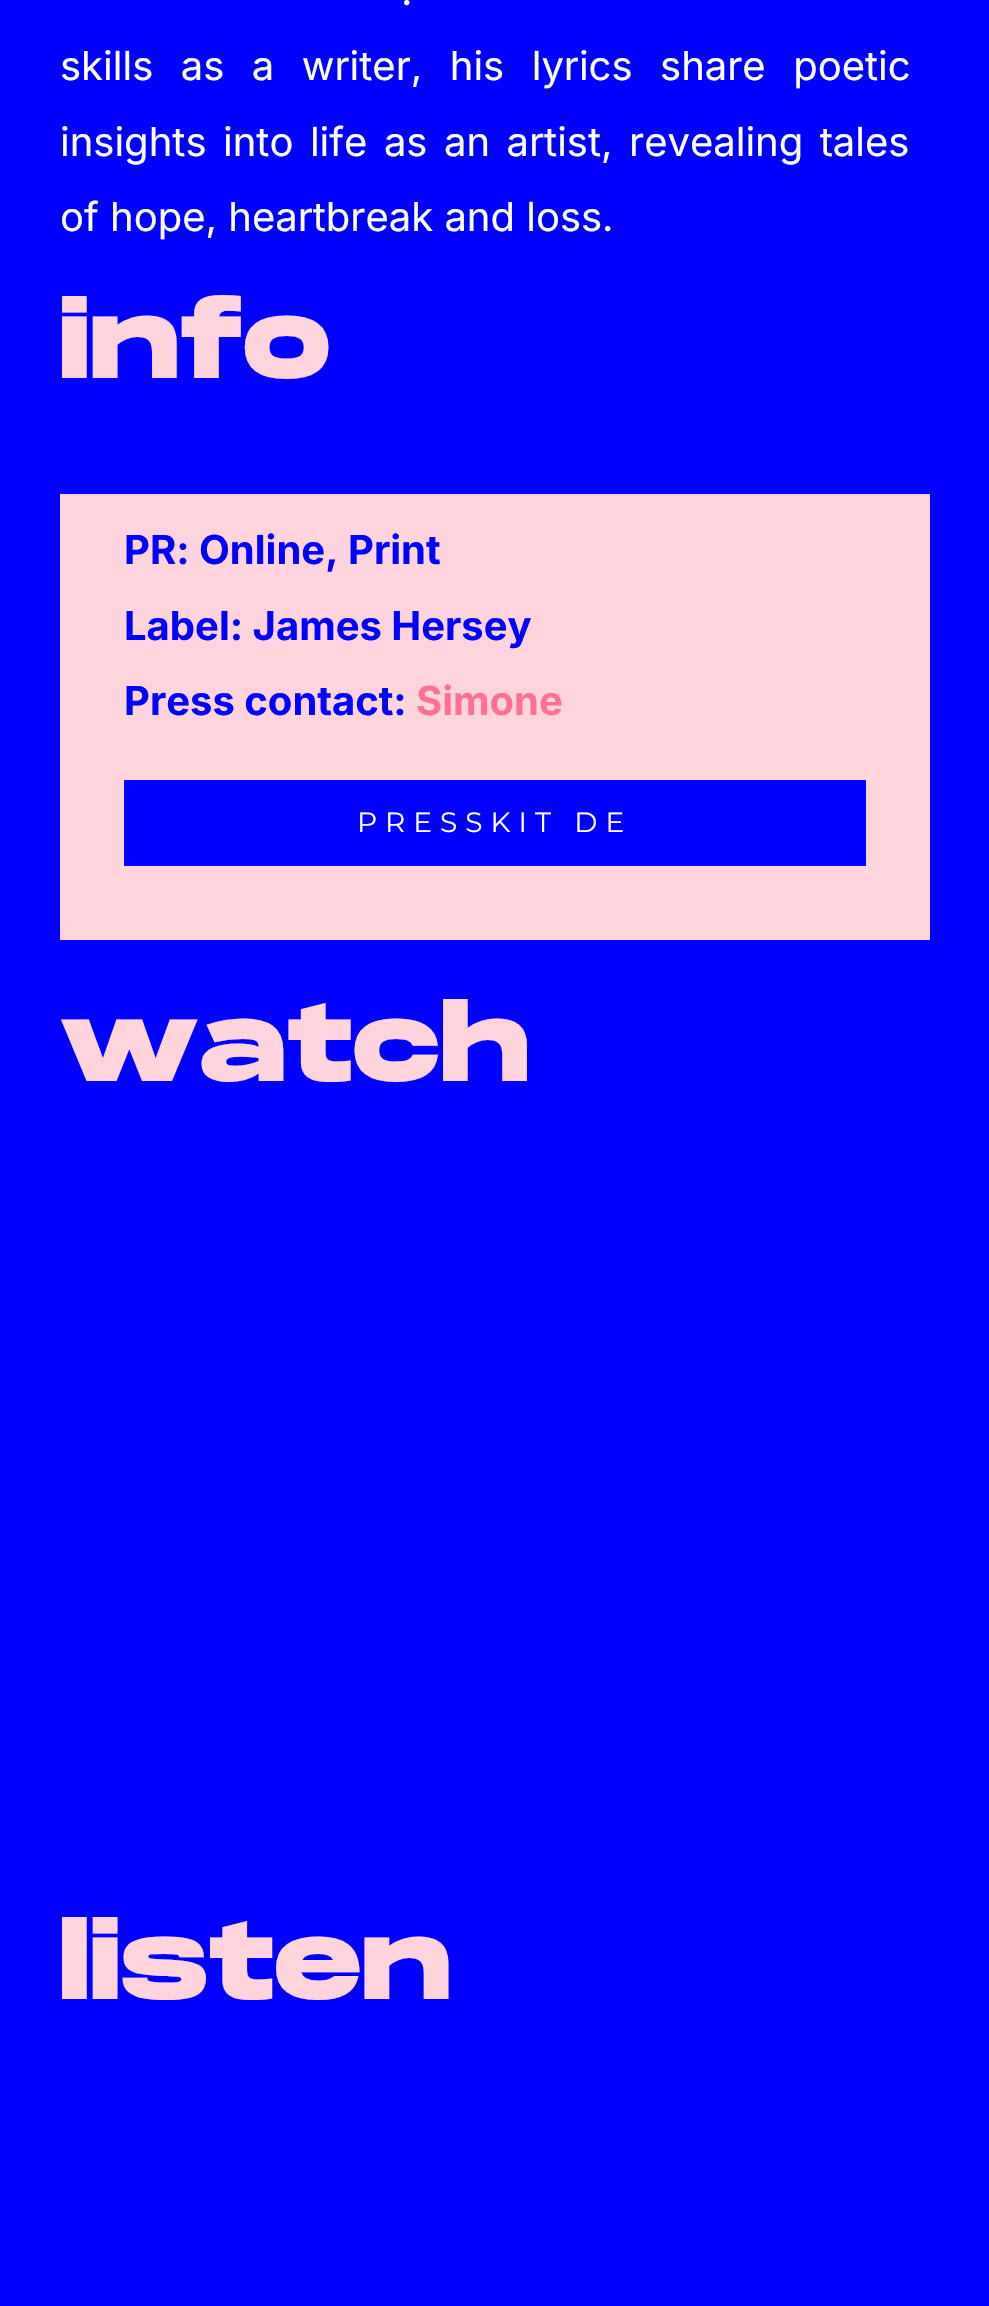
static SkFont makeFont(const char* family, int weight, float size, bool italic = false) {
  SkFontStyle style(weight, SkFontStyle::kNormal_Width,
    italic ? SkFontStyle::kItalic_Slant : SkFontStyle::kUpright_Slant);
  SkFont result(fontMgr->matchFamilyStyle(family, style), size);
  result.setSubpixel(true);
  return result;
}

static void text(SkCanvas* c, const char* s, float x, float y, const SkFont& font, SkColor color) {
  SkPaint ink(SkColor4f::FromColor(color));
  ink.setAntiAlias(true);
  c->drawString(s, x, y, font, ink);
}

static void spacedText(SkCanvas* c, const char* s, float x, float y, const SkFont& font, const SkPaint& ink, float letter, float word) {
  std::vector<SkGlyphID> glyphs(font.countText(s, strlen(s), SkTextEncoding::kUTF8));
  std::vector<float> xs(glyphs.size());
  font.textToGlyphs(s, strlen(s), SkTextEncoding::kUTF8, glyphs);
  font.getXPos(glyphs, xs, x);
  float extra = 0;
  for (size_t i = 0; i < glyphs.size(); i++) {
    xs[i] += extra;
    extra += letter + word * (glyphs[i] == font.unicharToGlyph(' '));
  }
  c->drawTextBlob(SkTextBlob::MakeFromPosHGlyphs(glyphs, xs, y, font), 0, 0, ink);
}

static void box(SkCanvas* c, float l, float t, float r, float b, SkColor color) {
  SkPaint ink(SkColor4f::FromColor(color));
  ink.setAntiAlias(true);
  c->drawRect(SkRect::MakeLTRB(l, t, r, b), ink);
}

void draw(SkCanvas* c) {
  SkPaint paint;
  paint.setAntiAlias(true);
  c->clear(0xff0000fe);
  SkFont face1 = makeFont("Inter", 400, 40);
  paint.setColor(0xffffffff);
  spacedText(c, ".", 401, 5, face1, paint, 0, 12);
  spacedText(c, "skills as a writer, his lyrics share poetic", 60, 80, face1, paint, 0, 16.25f);
  spacedText(c, "insights into life as an artist, revealing tales", 60, 156, face1, paint, 0, 5.25f);
  text(c, "of hope, heartbreak and loss.", 60, 231, face1, 0xffffffff);
  SkFont face2 = makeFont("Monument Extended", 800, 102.5f);
  paint.setColor(0xffffd4dd);
  spacedText(c, "info", 60, 378, face2, paint, 2, 0);
  box(c, 60, 494, 930, 940, 0xffffd4dd);
  SkFont face3 = makeFont("Inter", 700, 40);
  text(c, "PR: Online, Print", 124, 564, face3, 0xff0001fe);
  text(c, "Label: James Hersey", 124, 640, face3, 0xff0001fe);
  text(c, "Press contact:", 124, 715, face3, 0xff0001fe);
  text(c, "Simone", 416, 715, face3, 0xffff7093);
  box(c, 124, 780, 866, 866, 0xff0001fe);
  SkFont face4 = makeFont("Montserrat", 400, 28);
  paint.setColor(0xffffffff);
  spacedText(c, "PRESSKIT DE", 357, 832, face4, paint, 8, 0);
  paint.setColor(0xffffd4dd);
  spacedText(c, "watch", 60, 1081, face2, paint, 2, 0);
  spacedText(c, "listen", 60, 1999, face2, paint, 2, 0);
}
